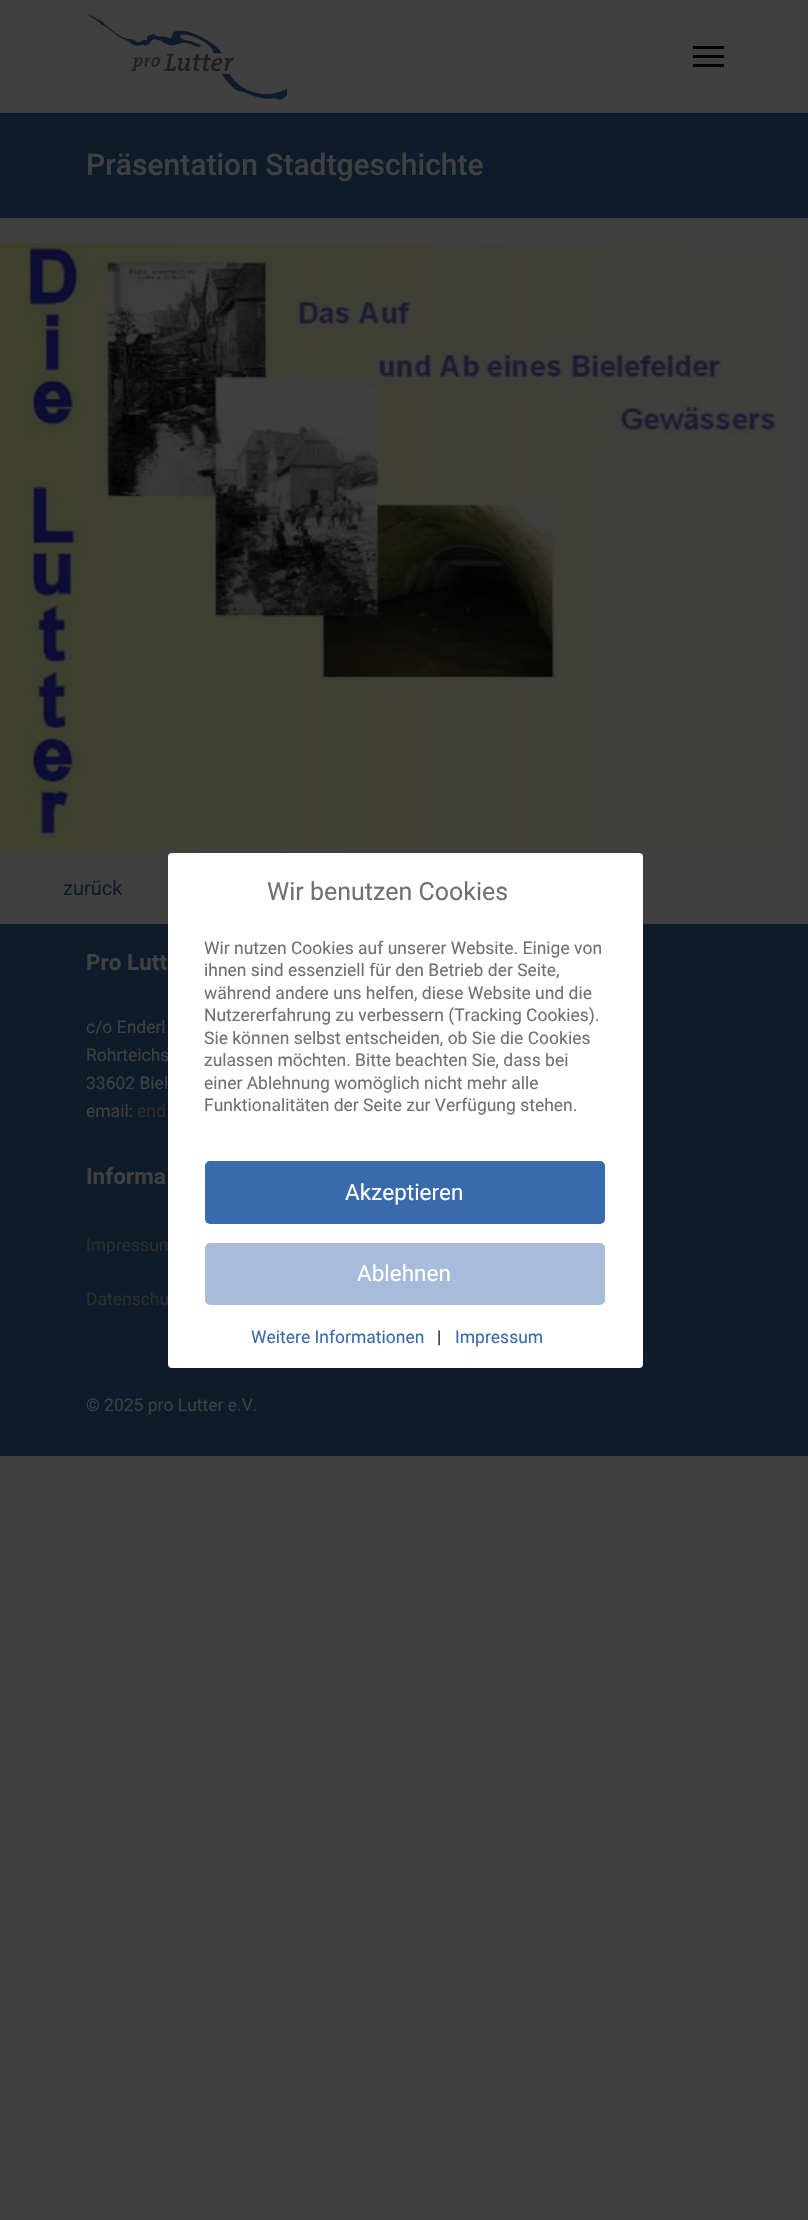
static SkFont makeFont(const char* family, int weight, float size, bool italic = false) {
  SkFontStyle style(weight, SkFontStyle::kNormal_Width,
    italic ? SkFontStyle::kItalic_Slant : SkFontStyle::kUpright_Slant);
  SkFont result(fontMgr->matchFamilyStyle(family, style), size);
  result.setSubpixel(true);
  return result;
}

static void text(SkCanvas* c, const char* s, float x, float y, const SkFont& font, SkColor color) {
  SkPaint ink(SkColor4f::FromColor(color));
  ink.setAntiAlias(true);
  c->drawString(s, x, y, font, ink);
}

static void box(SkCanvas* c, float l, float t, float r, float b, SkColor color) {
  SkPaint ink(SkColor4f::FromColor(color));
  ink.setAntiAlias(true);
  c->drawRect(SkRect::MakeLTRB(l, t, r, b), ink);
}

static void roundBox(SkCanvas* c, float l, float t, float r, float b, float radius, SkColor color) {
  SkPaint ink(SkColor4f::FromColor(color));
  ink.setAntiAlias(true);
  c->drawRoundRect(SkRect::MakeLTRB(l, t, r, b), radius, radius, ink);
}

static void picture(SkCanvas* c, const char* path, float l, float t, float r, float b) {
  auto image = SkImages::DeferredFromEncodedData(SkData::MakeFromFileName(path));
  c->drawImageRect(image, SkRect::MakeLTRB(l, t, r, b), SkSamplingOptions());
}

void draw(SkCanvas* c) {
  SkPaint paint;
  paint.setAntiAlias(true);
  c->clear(0xff404040);
  picture(c, "img_01.png", 86, 13, 287, 100);
  box(c, 693, 46, 724, 49, 0xff000000);
  box(c, 693, 55, 724, 58, 0xff000000);
  box(c, 693, 64, 724, 67, 0xff000000);
  box(c, 0, 113, 808, 218, 0xff0e1b2b);
  SkFont face1 = makeFont("Roboto", 500, 30);
  text(c, "Präsentation Stadtgeschichte", 86, 175, face1, 0xff404040);
  picture(c, "img_02.png", 0, 243, 785, 849);
  SkFont face2 = makeFont("Roboto", 400, 20);
  text(c, "zurück", 63, 895, face2, 0xff0e1b2b);
  box(c, 0, 924, 808, 1456, 0xff0e1b2b);
  SkFont face3 = makeFont("Roboto", 700, 22.5f);
  text(c, "Pro Lutt", 86, 970, face3, 0xff404040);
  SkFont face4 = makeFont("Roboto", 400, 17.5f);
  text(c, "c/o Enderl", 86, 1033, face4, 0xff404040);
  text(c, "Rohrteichs", 86, 1061, face4, 0xff404040);
  text(c, "33602 Biel", 86, 1089, face4, 0xff404040);
  text(c, "email:", 86, 1117, face4, 0xff404040);
  text(c, "end", 137, 1117, face4, 0xff2d2d2d);
  text(c, "Informa", 86, 1184, face3, 0xff404040);
  text(c, "Impressum", 86, 1251, face4, 0xff2d2d2d);
  text(c, "Datenschu", 86, 1305, face4, 0xff2d2d2d);
  box(c, 86, 1354, 724, 1355, 0xff131e2d);
  text(c, "© 2025 pro Lutter e.V.", 86, 1411, face4, 0xff404040);
  roundBox(c, 168, 853, 643, 1368, 4, 0xffffffff);
  SkFont face5 = makeFont("Roboto", 400, 25);
  text(c, "Wir benutzen Cookies", 267, 900, face5, 0xff707070);
  text(c, "Wir nutzen Cookies auf unserer Website. Einige von", 204, 954, face4, 0xff707070);
  text(c, "ihnen sind essenziell für den Betrieb der Seite,", 204, 976, face4, 0xff707070);
  text(c, "während andere uns helfen, diese Website und die", 204, 999, face4, 0xff707070);
  text(c, "Nutzererfahrung zu verbessern (Tracking Cookies).", 204, 1021, face4, 0xff707070);
  text(c, "Sie können selbst entscheiden, ob Sie die Cookies", 204, 1044, face4, 0xff707070);
  text(c, "zulassen möchten. Bitte beachten Sie, dass bei", 204, 1066, face4, 0xff707070);
  text(c, "einer Ablehnung womöglich nicht mehr alle", 204, 1089, face4, 0xff707070);
  text(c, "Funktionalitäten der Seite zur Verfügung stehen.", 204, 1111, face4, 0xff707070);
  roundBox(c, 205, 1161, 605, 1224, 5, 0xff396aac);
  SkFont face6 = makeFont("Roboto", 400, 22.5f);
  text(c, "Akzeptieren", 345, 1200, face6, 0xffffffff);
  roundBox(c, 205, 1243, 605, 1305, 5, 0xffa6bcda);
  text(c, "Ablehnen", 357, 1281, face6, 0xffffffff);
  text(c, "Weitere Informationen", 251, 1343, face4, 0xff396aac);
  text(c, "|", 437, 1343, face4, 0xff252525);
  text(c, "Impressum", 455, 1343, face4, 0xff396aac);
}
